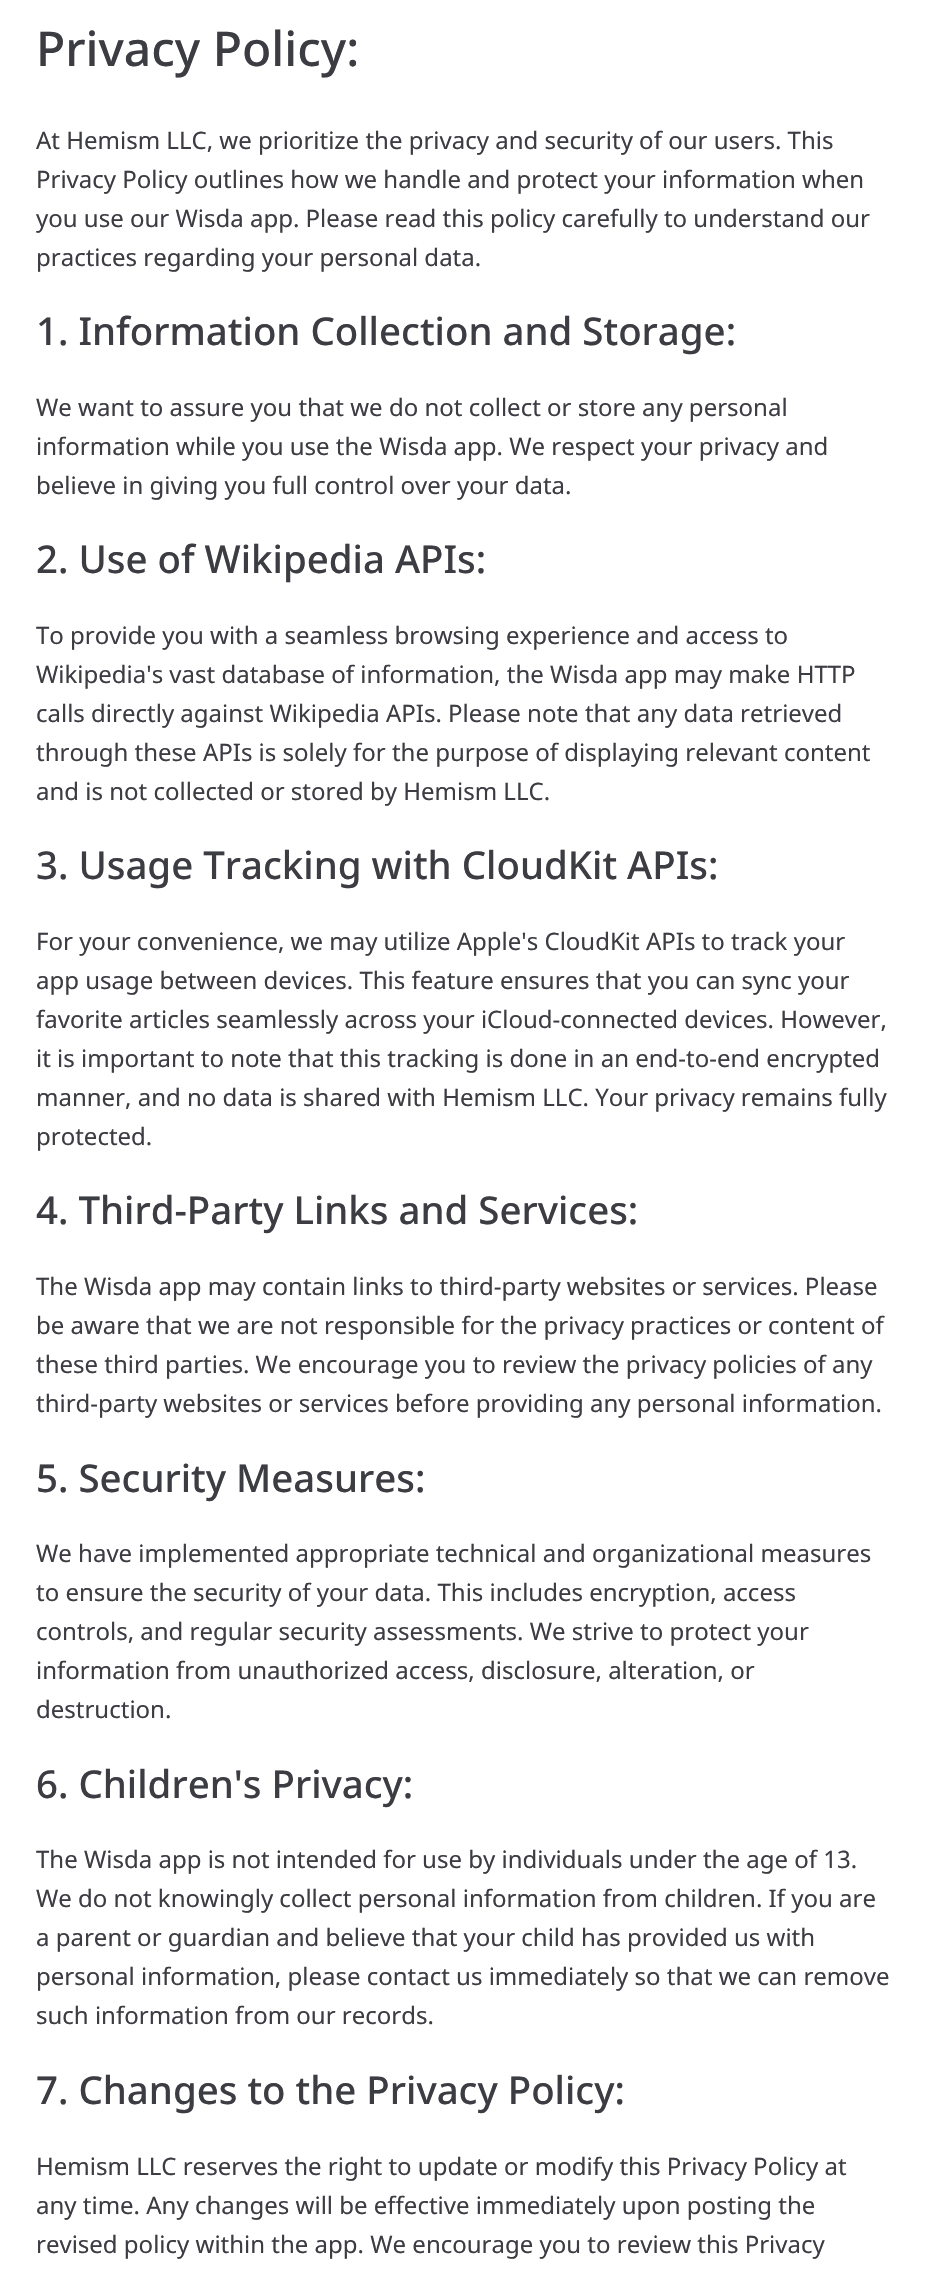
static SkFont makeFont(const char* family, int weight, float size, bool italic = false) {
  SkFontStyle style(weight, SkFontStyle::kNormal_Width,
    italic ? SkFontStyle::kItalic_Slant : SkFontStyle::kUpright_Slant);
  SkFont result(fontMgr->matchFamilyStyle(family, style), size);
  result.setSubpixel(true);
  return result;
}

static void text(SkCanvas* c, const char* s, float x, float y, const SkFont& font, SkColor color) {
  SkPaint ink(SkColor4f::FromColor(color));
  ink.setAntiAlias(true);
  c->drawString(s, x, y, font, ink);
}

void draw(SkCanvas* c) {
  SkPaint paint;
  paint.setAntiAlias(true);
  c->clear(0xffffffff);
  SkFont face1 = makeFont("Noto Sans", 500, 48);
  text(c, "Privacy Policy:", 36, 66, face1, 0xff3c3c43);
  SkFont face2 = makeFont("Noto Sans", 400, 24);
  text(c, "At Hemism LLC, we prioritize the privacy and security of our users. This", 36, 149, face2, 0xff3c3c43);
  text(c, "Privacy Policy outlines how we handle and protect your information when", 36, 188, face2, 0xff3c3c43);
  text(c, "you use our Wisda app. Please read this policy carefully to understand our", 36, 227, face2, 0xff3c3c43);
  text(c, "practices regarding your personal data.", 36, 266, face2, 0xff3c3c43);
  SkFont face3 = makeFont("Noto Sans", 500, 38.4f);
  text(c, "1. Information Collection and Storage:", 36, 345, face3, 0xff3c3c43);
  text(c, "We want to assure you that we do not collect or store any personal", 36, 416, face2, 0xff3c3c43);
  text(c, "information while you use the Wisda app. We respect your privacy and", 36, 455, face2, 0xff3c3c43);
  text(c, "believe in giving you full control over your data.", 36, 494, face2, 0xff3c3c43);
  text(c, "2. Use of Wikipedia APIs:", 36, 573, face3, 0xff3c3c43);
  text(c, "To provide you with a seamless browsing experience and access to", 36, 644, face2, 0xff3c3c43);
  text(c, "Wikipedia's vast database of information, the Wisda app may make HTTP", 36, 683, face2, 0xff3c3c43);
  text(c, "calls directly against Wikipedia APIs. Please note that any data retrieved", 36, 722, face2, 0xff3c3c43);
  text(c, "through these APIs is solely for the purpose of displaying relevant content", 36, 761, face2, 0xff3c3c43);
  text(c, "and is not collected or stored by Hemism LLC.", 36, 800, face2, 0xff3c3c43);
  text(c, "3. Usage Tracking with CloudKit APIs:", 36, 879, face3, 0xff3c3c43);
  text(c, "For your convenience, we may utilize Apple's CloudKit APIs to track your", 36, 950, face2, 0xff3c3c43);
  text(c, "app usage between devices. This feature ensures that you can sync your", 36, 989, face2, 0xff3c3c43);
  text(c, "favorite articles seamlessly across your iCloud-connected devices. However,", 36, 1028, face2, 0xff3c3c43);
  text(c, "it is important to note that this tracking is done in an end-to-end encrypted", 36, 1067, face2, 0xff3c3c43);
  text(c, "manner, and no data is shared with Hemism LLC. Your privacy remains fully", 36, 1106, face2, 0xff3c3c43);
  text(c, "protected.", 36, 1145, face2, 0xff3c3c43);
  text(c, "4. Third-Party Links and Services:", 36, 1224, face3, 0xff3c3c43);
  text(c, "The Wisda app may contain links to third-party websites or services. Please", 36, 1295, face2, 0xff3c3c43);
  text(c, "be aware that we are not responsible for the privacy practices or content of", 36, 1334, face2, 0xff3c3c43);
  text(c, "these third parties. We encourage you to review the privacy policies of any", 36, 1373, face2, 0xff3c3c43);
  text(c, "third-party websites or services before providing any personal information.", 36, 1412, face2, 0xff3c3c43);
  text(c, "5. Security Measures:", 36, 1492, face3, 0xff3c3c43);
  text(c, "We have implemented appropriate technical and organizational measures", 36, 1562, face2, 0xff3c3c43);
  text(c, "to ensure the security of your data. This includes encryption, access", 36, 1601, face2, 0xff3c3c43);
  text(c, "controls, and regular security assessments. We strive to protect your", 36, 1640, face2, 0xff3c3c43);
  text(c, "information from unauthorized access, disclosure, alteration, or", 36, 1679, face2, 0xff3c3c43);
  text(c, "destruction.", 36, 1718, face2, 0xff3c3c43);
  text(c, "6. Children's Privacy:", 36, 1798, face3, 0xff3c3c43);
  text(c, "The Wisda app is not intended for use by individuals under the age of 13.", 36, 1868, face2, 0xff3c3c43);
  text(c, "We do not knowingly collect personal information from children. If you are", 36, 1907, face2, 0xff3c3c43);
  text(c, "a parent or guardian and believe that your child has provided us with", 36, 1946, face2, 0xff3c3c43);
  text(c, "personal information, please contact us immediately so that we can remove", 36, 1985, face2, 0xff3c3c43);
  text(c, "such information from our records.", 36, 2024, face2, 0xff3c3c43);
  text(c, "7. Changes to the Privacy Policy:", 36, 2104, face3, 0xff3c3c43);
  text(c, "Hemism LLC reserves the right to update or modify this Privacy Policy at", 36, 2175, face2, 0xff3c3c43);
  text(c, "any time. Any changes will be effective immediately upon posting the", 36, 2214, face2, 0xff3c3c43);
  text(c, "revised policy within the app. We encourage you to review this Privacy", 36, 2253, face2, 0xff3c3c43);
}
